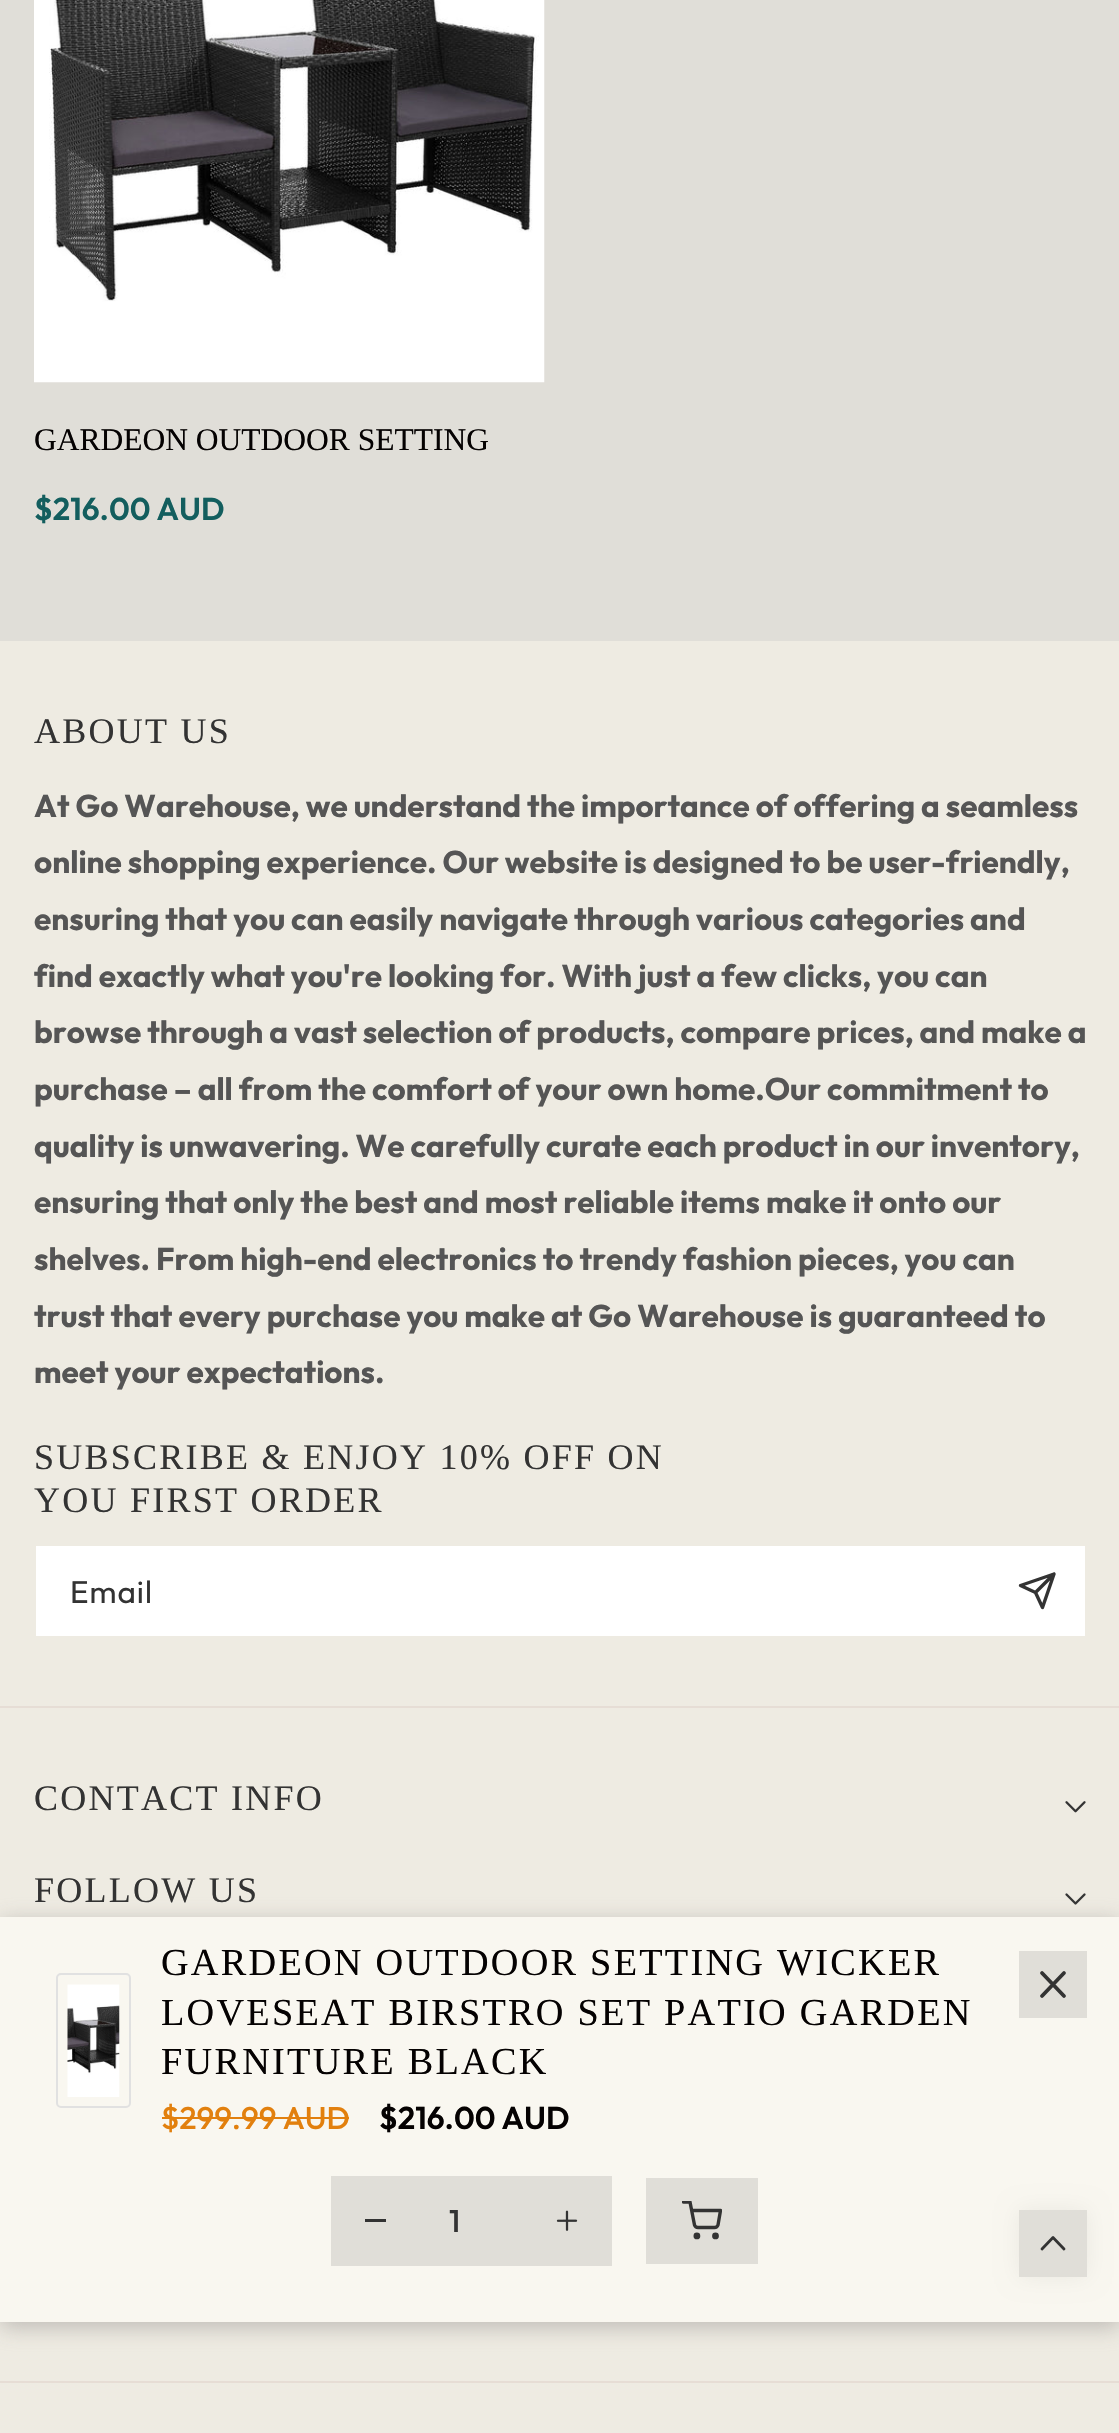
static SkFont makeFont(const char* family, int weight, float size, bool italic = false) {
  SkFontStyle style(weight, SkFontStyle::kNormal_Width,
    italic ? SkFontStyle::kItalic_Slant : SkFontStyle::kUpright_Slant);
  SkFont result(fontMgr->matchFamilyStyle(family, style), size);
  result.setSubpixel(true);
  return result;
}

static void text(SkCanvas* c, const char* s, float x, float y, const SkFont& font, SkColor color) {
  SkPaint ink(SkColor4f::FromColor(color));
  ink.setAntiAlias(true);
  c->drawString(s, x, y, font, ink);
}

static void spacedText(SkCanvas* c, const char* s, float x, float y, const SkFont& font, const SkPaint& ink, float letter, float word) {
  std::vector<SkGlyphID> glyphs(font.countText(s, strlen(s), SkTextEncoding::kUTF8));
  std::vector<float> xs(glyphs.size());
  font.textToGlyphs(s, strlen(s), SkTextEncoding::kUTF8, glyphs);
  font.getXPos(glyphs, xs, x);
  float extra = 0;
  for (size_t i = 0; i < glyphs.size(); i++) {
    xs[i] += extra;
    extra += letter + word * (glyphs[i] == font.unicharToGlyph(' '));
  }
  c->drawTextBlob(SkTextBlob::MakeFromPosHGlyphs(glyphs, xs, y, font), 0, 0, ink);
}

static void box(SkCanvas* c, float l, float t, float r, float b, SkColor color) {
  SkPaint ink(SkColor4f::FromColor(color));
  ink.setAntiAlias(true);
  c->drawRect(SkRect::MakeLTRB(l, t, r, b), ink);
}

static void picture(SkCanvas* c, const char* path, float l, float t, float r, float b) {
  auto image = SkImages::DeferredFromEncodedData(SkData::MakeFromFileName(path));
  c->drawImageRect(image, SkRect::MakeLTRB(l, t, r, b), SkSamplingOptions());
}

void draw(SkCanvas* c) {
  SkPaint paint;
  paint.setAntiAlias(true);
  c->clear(0xffe0ded8);
  picture(c, "img_01.png", 34, 0, 545, 383);
  SkFont face1 = makeFont("Liberation Serif", 400, 31.5f);
  text(c, "GARDEON OUTDOOR SETTING", 34, 450, face1, 0xff050202);
  SkFont face2 = makeFont("Outfit", 600, 31.5f);
  text(c, "$216.00 AUD", 34, 520, face2, 0xff135e5e);
  box(c, 0, 1708, 1119, 2381, 0xffeeebe2);
  picture(c, "img_05.png", 1065, 1893, 1086, 1905);
  paint.setColor(0x80898686);
  paint.setMaskFilter(SkMaskFilter::MakeBlur(kNormal_SkBlurStyle, 11));
  c->drawRect(SkRect::MakeLTRB(0, 1922, 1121, 2327), paint);
  paint.setMaskFilter(nullptr);
  box(c, 0, 1917, 1119, 2322, 0xfff9f7f0);
  paint.setStyle(SkPaint::kStroke_Style);
  paint.setStrokeWidth(2);
  paint.setColor(0xffe1e1e1);
  c->drawRoundRect(SkRect::MakeLTRB(57, 1974, 130, 2107), 4, 4, paint);
  picture(c, "img_02.png", 67, 1984, 120, 2097);
  SkFont face3 = makeFont("Liberation Serif", 400, 38.25f);
  paint.setStyle(SkPaint::kFill_Style);
  paint.setColor(0xff050202);
  spacedText(c, "GARDEON OUTDOOR SETTING WICKER", 161, 1975, face3, paint, 2.25f, 0);
  spacedText(c, "LOVESEAT BIRSTRO SET PATIO GARDEN", 161, 2025, face3, paint, 2.25f, 0);
  spacedText(c, "FURNITURE BLACK", 161, 2074, face3, paint, 2.25f, 0);
  SkFont face4 = makeFont("Outfit", 500, 31.5f);
  text(c, "$299.99 AUD", 161, 2129, face4, 0xffe2800e);
  box(c, 162, 2117, 349, 2119, 0xffe2800e);
  text(c, "$216.00 AUD", 379, 2129, face2, 0xff050202);
  box(c, 1019, 1951, 1087, 2018, 0xffe0ded8);
  paint.setStyle(SkPaint::kStroke_Style);
  paint.setStrokeWidth(3.8f);
  paint.setStrokeCap(SkPaint::kRound_Cap);
  paint.setStrokeJoin(SkPaint::kRound_Join);
  paint.setColor(0xff333333);
  c->drawPath(SkPathBuilder().moveTo(1064, 1973).lineTo(1042, 1996).moveTo(1042, 1973).lineTo(1064, 1996).detach(), paint);
  box(c, 331, 2176, 421, 2266, 0xffe0ded8);
  box(c, 365, 2219, 386, 2222, 0xff333333);
  box(c, 421, 2176, 612, 2266, 0xffe0ded8);
  picture(c, "img_03.png", 556, 2210, 578, 2231);
  text(c, "1", 449, 2232, face4, 0xff333333);
  box(c, 646, 2178, 758, 2264, 0xffe0ded8);
  paint.setStrokeWidth(3.4f);
  paint.setStrokeCap(SkPaint::kButt_Cap);
  paint.setStrokeJoin(SkPaint::kMiter_Join);
  c->drawCircle(696.9f, 2235.9f, 1.7f, paint);
  c->drawCircle(715.5f, 2235.9f, 1.7f, paint);
  c->save();
  c->clipRect(SkRect::MakeLTRB(682, 2201, 722, 2241));
  paint.setStrokeCap(SkPaint::kRound_Cap);
  paint.setStrokeJoin(SkPaint::kRound_Join);
  c->drawPath(SkPathBuilder().moveTo(683.5f, 2202).lineTo(690, 2202).lineTo(694.5f, 2225).cubicTo(695, 2226.5f, 696.5f, 2227.5f, 698, 2227.5f).lineTo(714.5f, 2227.5f).cubicTo(716, 2227.5f, 717.5f, 2226.5f, 718, 2225).lineTo(720.5f, 2210.5f).lineTo(692, 2210.5f).detach(), paint);
  c->restore();
  box(c, 0, 641, 1119, 1706, 0xffeeebe2);
  box(c, 0, 1706, 1119, 1708, 0xffe6ddd5);
  SkFont face5 = makeFont("Liberation Serif", 400, 36);
  paint.setStyle(SkPaint::kFill_Style);
  spacedText(c, "ABOUT US", 34, 743, face5, paint, 2.25f, 0);
  SkFont face6 = makeFont("Outfit", 700, 31.5f);
  text(c, "At Go Warehouse, we understand the importance of offering a seamless", 34, 817, face6, 0xff555555);
  text(c, "online shopping experience. Our website is designed to be user-friendly,", 34, 873, face6, 0xff555555);
  text(c, "ensuring that you can easily navigate through various categories and", 34, 930, face6, 0xff555555);
  text(c, "find exactly what you're looking for. With just a few clicks, you can", 34, 987, face6, 0xff555555);
  text(c, "browse through a vast selection of products, compare prices, and make a", 34, 1043, face6, 0xff555555);
  text(c, "purchase – all from the comfort of your own home.Our commitment to", 34, 1100, face6, 0xff555555);
  text(c, "quality is unwavering. We carefully curate each product in our inventory,", 34, 1157, face6, 0xff555555);
  text(c, "ensuring that only the best and most reliable items make it onto our", 34, 1213, face6, 0xff555555);
  text(c, "shelves. From high-end electronics to trendy fashion pieces, you can", 34, 1270, face6, 0xff555555);
  text(c, "trust that every purchase you make at Go Warehouse is guaranteed to", 34, 1327, face6, 0xff555555);
  text(c, "meet your expectations.", 34, 1383, face6, 0xff555555);
  spacedText(c, "SUBSCRIBE & ENJOY 10% OFF ON", 34, 1469, face5, paint, 2.25f, 0);
  spacedText(c, "YOU FIRST ORDER", 34, 1512, face5, paint, 2.25f, 0);
  box(c, 36, 1546, 1085, 1636, 0xffffffff);
  SkFont face7 = makeFont("Outfit", 400, 31.5f);
  spacedText(c, "Email", 70, 1603, face7, paint, 1, 0);
  paint.setStyle(SkPaint::kStroke_Style);
  c->drawPath(SkPathBuilder().moveTo(1054, 1574).lineTo(1035.5f, 1592.5f).moveTo(1054, 1574).lineTo(1042.5f, 1607.5f).lineTo(1035.5f, 1592.5f).lineTo(1020.5f, 1585.5f).close().detach(), paint);
  paint.setStyle(SkPaint::kFill_Style);
  spacedText(c, "CONTACT INFO", 34, 1810, face5, paint, 2.25f, 0);
  picture(c, "img_04.png", 1065, 1801, 1086, 1813);
  spacedText(c, "FOLLOW US", 34, 1902, face5, paint, 2.25f, 0);
  box(c, 0, 2383, 1119, 2433, 0xffeeebe2);
  box(c, 0, 2381, 1119, 2383, 0xffe6ddd5);
  paint.setColor(0x0f000000);
  paint.setMaskFilter(SkMaskFilter::MakeBlur(kNormal_SkBlurStyle, 11));
  c->drawRect(SkRect::MakeLTRB(1019, 2210, 1087, 2277), paint);
  paint.setMaskFilter(nullptr);
  box(c, 1019, 2210, 1087, 2277, 0xffe0ded8);
  paint.setStyle(SkPaint::kStroke_Style);
  paint.setStrokeWidth(2.8f);
  paint.setColor(0xff333333);
  c->drawPath(SkPathBuilder().moveTo(1064, 2249).lineTo(1053, 2237.5f).lineTo(1042, 2249).detach(), paint);
}
